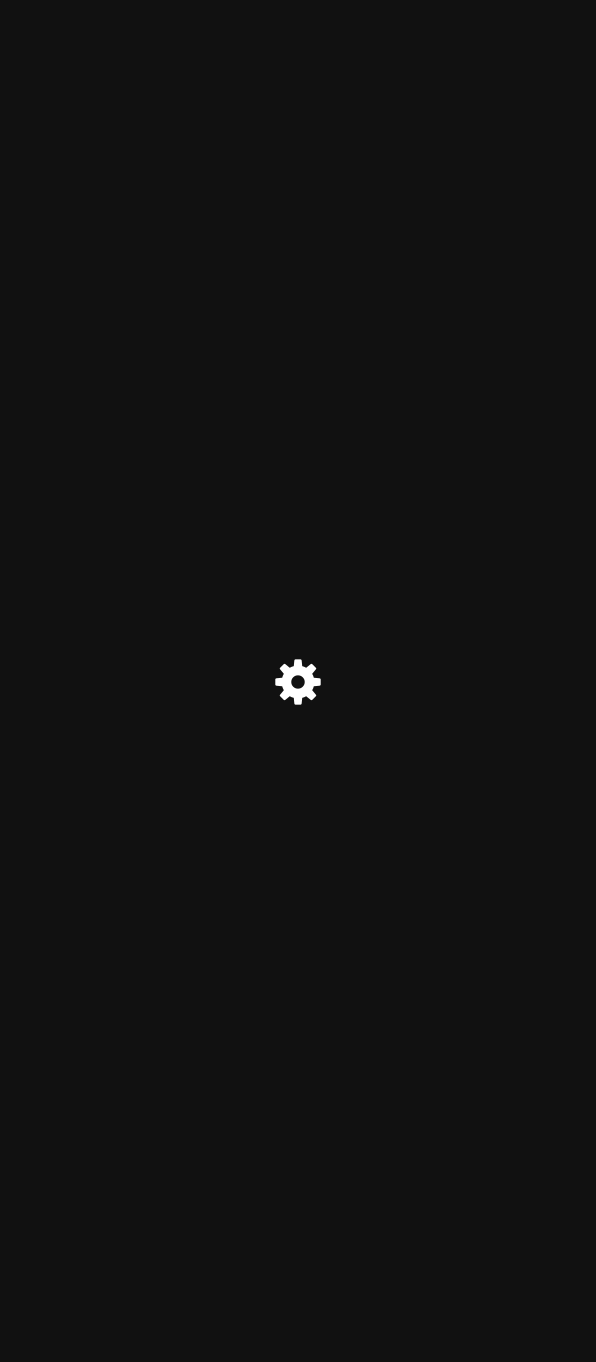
static void picture(SkCanvas* c, const char* path, float l, float t, float r, float b) {
  auto image = SkImages::DeferredFromEncodedData(SkData::MakeFromFileName(path));
  c->drawImageRect(image, SkRect::MakeLTRB(l, t, r, b), SkSamplingOptions());
}

void draw(SkCanvas* c) {
  SkPaint paint;
  paint.setAntiAlias(true);
  c->clear(0xff111111);
  picture(c, "img_01.png", 275, 659, 321, 705);
}
